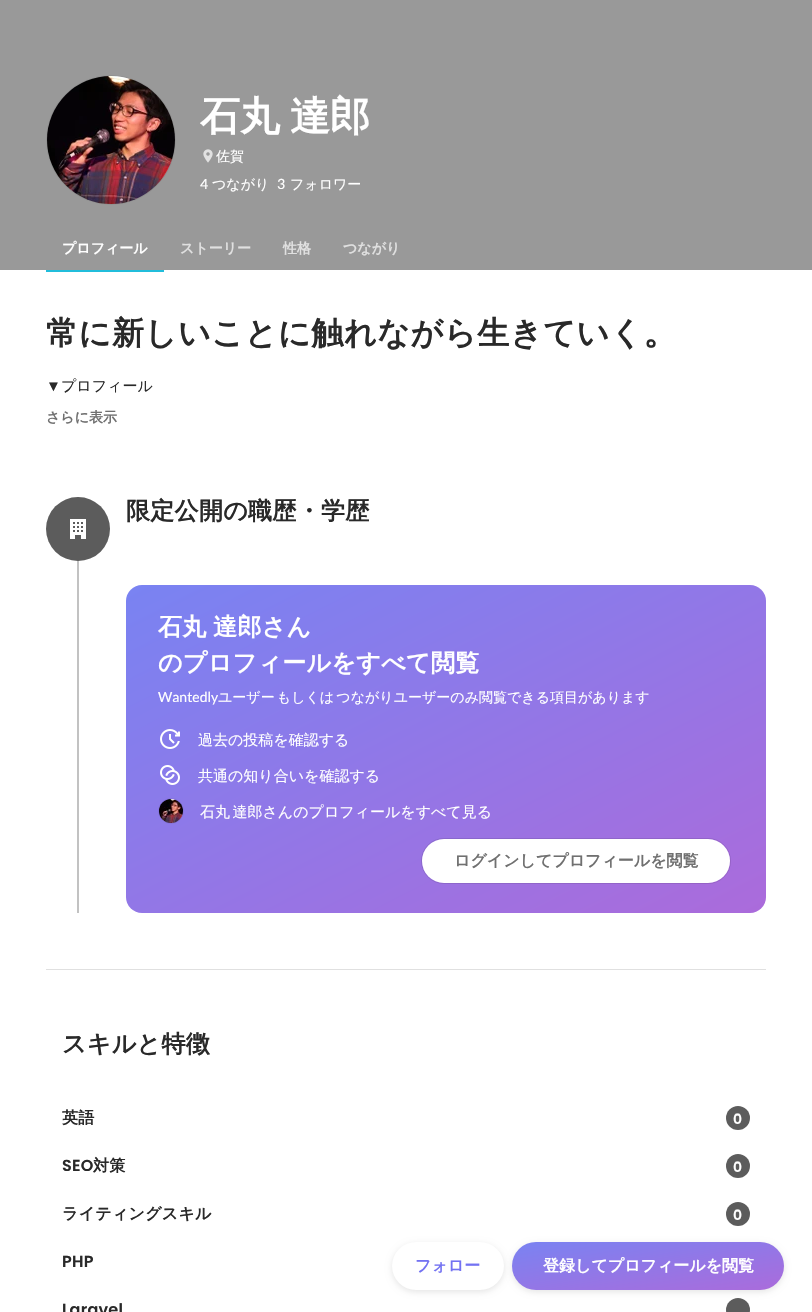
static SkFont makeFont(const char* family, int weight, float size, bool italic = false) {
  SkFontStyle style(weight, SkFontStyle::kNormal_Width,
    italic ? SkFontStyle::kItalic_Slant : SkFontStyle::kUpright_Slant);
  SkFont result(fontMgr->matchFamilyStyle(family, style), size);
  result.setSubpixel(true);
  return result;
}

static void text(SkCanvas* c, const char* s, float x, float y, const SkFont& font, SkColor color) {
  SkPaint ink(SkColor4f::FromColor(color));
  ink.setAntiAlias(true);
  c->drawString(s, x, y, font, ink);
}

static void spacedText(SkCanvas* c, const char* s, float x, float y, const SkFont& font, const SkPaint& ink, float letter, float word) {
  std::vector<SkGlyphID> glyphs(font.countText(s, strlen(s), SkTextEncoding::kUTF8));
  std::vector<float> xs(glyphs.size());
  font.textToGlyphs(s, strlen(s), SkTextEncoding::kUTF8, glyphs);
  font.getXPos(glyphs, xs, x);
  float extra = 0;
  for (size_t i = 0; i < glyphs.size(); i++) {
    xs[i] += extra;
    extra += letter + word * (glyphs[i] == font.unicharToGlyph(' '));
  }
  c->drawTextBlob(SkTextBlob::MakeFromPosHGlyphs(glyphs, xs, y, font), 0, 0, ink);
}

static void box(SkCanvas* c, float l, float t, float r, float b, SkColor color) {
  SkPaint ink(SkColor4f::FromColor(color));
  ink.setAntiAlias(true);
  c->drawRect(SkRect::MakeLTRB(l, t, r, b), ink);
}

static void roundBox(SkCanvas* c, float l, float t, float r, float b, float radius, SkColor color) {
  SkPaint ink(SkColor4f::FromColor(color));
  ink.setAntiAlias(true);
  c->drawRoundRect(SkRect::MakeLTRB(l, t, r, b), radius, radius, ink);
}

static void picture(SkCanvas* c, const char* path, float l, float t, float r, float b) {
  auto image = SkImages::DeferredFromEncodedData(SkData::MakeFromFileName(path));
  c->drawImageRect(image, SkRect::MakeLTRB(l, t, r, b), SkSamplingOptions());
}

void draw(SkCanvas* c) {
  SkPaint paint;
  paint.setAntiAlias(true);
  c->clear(0xffffffff);
  box(c, 0, 0, 812, 270, 0xff999999);
  paint.setStyle(SkPaint::kStroke_Style);
  paint.setStrokeWidth(1);
  paint.setColor(0xff909090);
  c->drawCircle(111, 140, 64.5f, paint);
  picture(c, "img_01.png", 47, 76, 175, 204);
  SkFont face1 = makeFont("WenQuanYi Zen Hei", 700, 40);
  paint.setStyle(SkPaint::kFill_Style);
  paint.setColor(0xffffffff);
  spacedText(c, "石丸 達郎", 200, 130, face1, paint, 0, -2);
  picture(c, "img_02.png", 203, 149, 213, 163);
  SkFont face2 = makeFont("WenQuanYi Zen Hei", 500, 14);
  text(c, "佐賀", 216, 161, face2, 0xffffffff);
  SkFont face3 = makeFont("Lato", 400, 14);
  text(c, "4", 200, 189, face3, 0xffffffff);
  text(c, "つながり", 212, 189, face2, 0xffffffff);
  text(c, "3", 277, 189, face3, 0xffffffff);
  text(c, "フォロワー", 290, 189, face2, 0xffffffff);
  box(c, 46, 270, 164, 272, 0xff21bddb);
  SkFont face4 = makeFont("WenQuanYi Zen Hei", 700, 14);
  text(c, "プロフィール", 62, 253, face4, 0xffffffff);
  text(c, "ストーリー", 180, 253, face4, 0xffe0e0e0);
  text(c, "性格", 283, 253, face4, 0xffe0e0e0);
  text(c, "つながり", 343, 253, face4, 0xffe0e0e0);
  paint.setColor(0x1a000000);
  paint.setMaskFilter(SkMaskFilter::MakeBlur(kNormal_SkBlurStyle, 3));
  c->drawRoundRect(SkRect::MakeLTRB(392, 1244, 504, 1292), 24, 24, paint);
  paint.setMaskFilter(nullptr);
  roundBox(c, 392, 1242, 504, 1290, 24, 0xffffffff);
  SkFont face5 = makeFont("WenQuanYi Zen Hei", 700, 16);
  text(c, "フォロー", 415, 1271, face5, 0xff7372f2);
  paint.setColor(0xff5c5c5c);
  c->drawCircle(738, 1310, 12, paint);
  paint.setColor(0x1a000000);
  paint.setMaskFilter(SkMaskFilter::MakeBlur(kNormal_SkBlurStyle, 3));
  c->drawRoundRect(SkRect::MakeLTRB(512, 1244, 784, 1292), 24, 24, paint);
  paint.setMaskFilter(nullptr);
  {
    const SkColor colors[] = {0xff7983f2, 0xffab6bdb};
    const float stops[] = {0, 1};
    const SkPoint ends[] = {{640, 1219}, {656, 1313}};
    paint.setShader(SkGradientShader::MakeLinear(ends, colors, stops, 2, SkTileMode::kClamp));
    paint.setAlpha(255);
  }
  c->drawRoundRect(SkRect::MakeLTRB(512, 1242, 784, 1290), 24, 24, paint);
  text(c, "登録してプロフィールを閲覧", 543, 1271, face5, 0xffffffff);
  SkFont face6 = makeFont("WenQuanYi Zen Hei", 700, 32);
  paint.setShader(nullptr);
  paint.setColor(0xff292929);
  spacedText(c, "常に新しいことに触れながら生きていく", 46, 344, face6, paint, 0.6f, 0);
  SkFont face7 = makeFont("WenQuanYi Zen Hei", 700, 36);
  spacedText(c, "。", 643, 344, face7, paint, 0.6f, 0);
  SkFont face8 = makeFont("Liberation Sans", 400, 15);
  text(c, "▼", 46, 391, face8, 0xff292929);
  SkFont face9 = makeFont("WenQuanYi Zen Hei", 500, 15);
  text(c, "プロフィール", 61, 391, face9, 0xff292929);
  text(c, "さらに表示", 46, 422, face4, 0xff707070);
  box(c, 77, 497, 79, 913, 0xffc2c2c2);
  paint.setColor(0xff5c5c5c);
  c->drawCircle(78, 529, 32, paint);
  picture(c, "img_03.png", 70, 519, 86, 539);
  SkFont face10 = makeFont("WenQuanYi Zen Hei", 700, 24);
  paint.setColor(0xff292929);
  spacedText(c, "限定公開の職歴・学歴", 126, 519, face10, paint, 0.3f, 0);
  {
    const SkColor colors[] = {0xff7983f2, 0xffab6bdb};
    const float stops[] = {0, 1};
    const SkPoint ends[] = {{313, 489}, {579, 1009}};
    paint.setShader(SkGradientShader::MakeLinear(ends, colors, stops, 2, SkTileMode::kClamp));
    paint.setAlpha(255);
  }
  c->drawRoundRect(SkRect::MakeLTRB(126, 585, 766, 913), 16, 16, paint);
  paint.setShader(nullptr);
  paint.setColor(0xffffffff);
  spacedText(c, "石丸 達郎さん", 158, 635, face10, paint, 0.3f, -1);
  spacedText(c, "のプロフィールをすべて閲覧", 158, 671, face10, paint, 0.3f, 0);
  text(c, "Wantedly", 158, 702, face3, 0xffffffff);
  spacedText(c, "ユーザー もしくは つながりユーザーのみ閲覧できる項目があります", 218, 702, face2, paint, 0, -2);
  picture(c, "img_04.png", 160, 729, 180, 749);
  text(c, "過去の投稿を確認する", 198, 745, face9, 0xffffffff);
  picture(c, "img_05.png", 160, 765, 180, 785);
  text(c, "共通の知り合いを確認する", 198, 781, face9, 0xffffffff);
  paint.setStyle(SkPaint::kStroke_Style);
  paint.setColor(0xff8472db);
  c->drawCircle(171, 811, 12.5f, paint);
  picture(c, "img_06.png", 159, 799, 183, 823);
  paint.setStyle(SkPaint::kFill_Style);
  paint.setColor(0xffffffff);
  spacedText(c, "石丸 達郎さんのプロフィールをすべて見る", 200, 817, face9, paint, 0, -2);
  paint.setStyle(SkPaint::kStroke_Style);
  paint.setColor(0x1a000000);
  c->drawRoundRect(SkRect::MakeLTRB(421.5f, 838.5f, 730.5f, 883.5f), 22.5f, 22.5f, paint);
  roundBox(c, 422, 839, 730, 883, 22, 0xffffffff);
  text(c, "ログインしてプロフィールを閲覧", 454, 866, face5, 0xff707070);
  box(c, 46, 969, 766, 970, 0xffe0e0e0);
  paint.setStyle(SkPaint::kFill_Style);
  paint.setColor(0xff292929);
  spacedText(c, "スキルと特徴", 62, 1052, face10, paint, 0.3f, 0);
  spacedText(c, "英語", 62, 1123, face5, paint, 0.25f, 0);
  paint.setColor(0xff5c5c5c);
  c->drawCircle(738, 1118, 12, paint);
  SkFont face11 = makeFont("Poppins", 600, 14);
  text(c, "0", 733, 1124, face11, 0xffffffff);
  SkFont face12 = makeFont("Poppins", 600, 16);
  paint.setColor(0xff292929);
  spacedText(c, "SEO", 62, 1171, face12, paint, 0.25f, 0);
  spacedText(c, "対策", 93, 1171, face5, paint, 0.25f, 0);
  paint.setColor(0xff5c5c5c);
  c->drawCircle(738, 1166, 12, paint);
  text(c, "0", 733, 1172, face11, 0xffffffff);
  paint.setColor(0xff292929);
  spacedText(c, "ライティングスキル", 62, 1219, face5, paint, 0.25f, 0);
  paint.setColor(0xff5c5c5c);
  c->drawCircle(738, 1214, 12, paint);
  text(c, "0", 733, 1220, face11, 0xffffffff);
  paint.setColor(0xff292929);
  spacedText(c, "PHP", 62, 1267, face12, paint, 0.25f, 0);
  spacedText(c, "Laravel", 62, 1315, face12, paint, 0.25f, 0);
}
